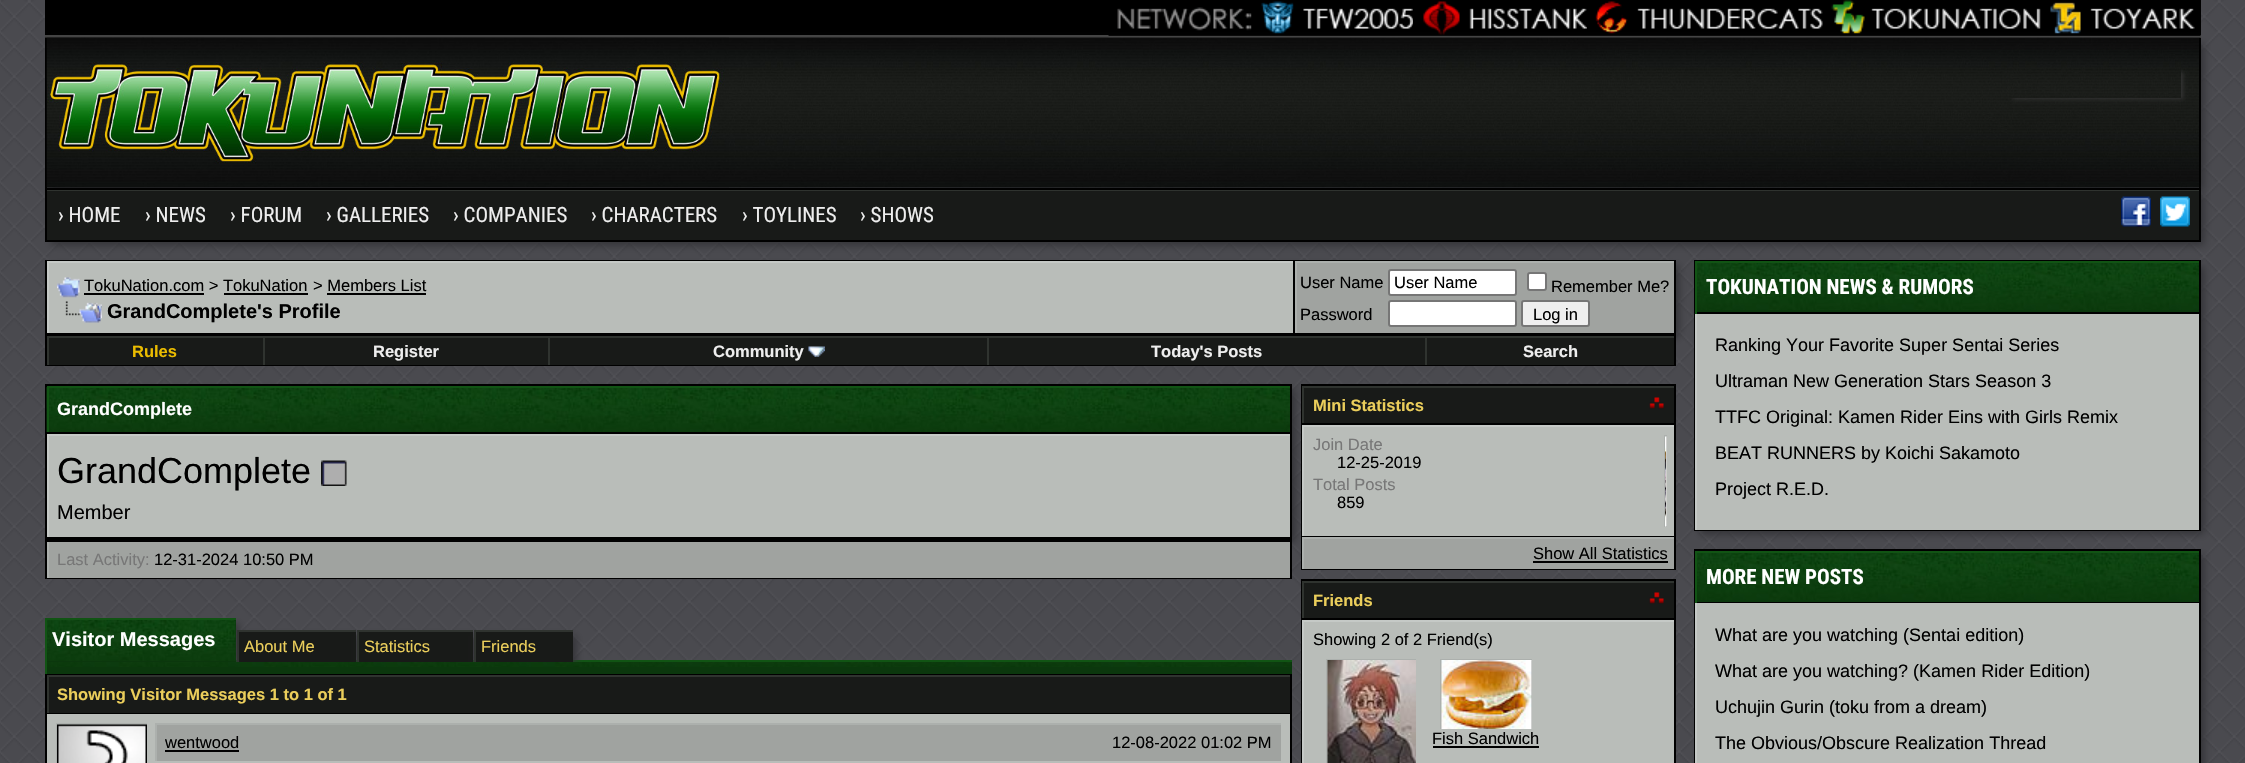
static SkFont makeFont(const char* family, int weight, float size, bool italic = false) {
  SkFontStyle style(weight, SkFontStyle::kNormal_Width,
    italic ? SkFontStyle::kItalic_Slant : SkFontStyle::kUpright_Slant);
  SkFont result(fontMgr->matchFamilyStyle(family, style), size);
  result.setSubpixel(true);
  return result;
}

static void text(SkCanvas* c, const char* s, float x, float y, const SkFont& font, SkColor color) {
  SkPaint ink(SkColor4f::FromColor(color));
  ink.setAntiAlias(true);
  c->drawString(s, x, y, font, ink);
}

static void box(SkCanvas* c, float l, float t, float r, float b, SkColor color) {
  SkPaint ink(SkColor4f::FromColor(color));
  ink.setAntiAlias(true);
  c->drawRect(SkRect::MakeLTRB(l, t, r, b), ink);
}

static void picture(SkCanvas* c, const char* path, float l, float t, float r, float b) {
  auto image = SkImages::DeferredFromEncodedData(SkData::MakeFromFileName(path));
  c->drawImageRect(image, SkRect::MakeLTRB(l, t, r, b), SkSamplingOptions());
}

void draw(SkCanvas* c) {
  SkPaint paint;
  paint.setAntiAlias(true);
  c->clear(0xffffffff);
  picture(c, "img_01.png", 0, 0, 2245, 763);
  box(c, 45, 0, 2201, 35, 0xff000000);
  box(c, 45, 35, 2201, 38, 0xff444444);
  picture(c, "img_02.png", 1108, 0, 2201, 38);
  picture(c, "img_03.png", 1249, 1, 1413, 34);
  picture(c, "img_04.png", 1421, 1, 1587, 35);
  picture(c, "img_05.png", 1594, 1, 1823, 34);
  paint.setColor(0xff323236);
  paint.setMaskFilter(SkMaskFilter::MakeBlur(kNormal_SkBlurStyle, 4));
  c->drawRect(SkRect::MakeLTRB(51, 44, 2204, 191), paint);
  paint.setMaskFilter(nullptr);
  picture(c, "img_06.png", 45, 37, 2201, 188);
  box(c, 2199, 38, 2201, 188, 0xff000000);
  box(c, 45, 38, 47, 188, 0xff000000);
  picture(c, "img_07.png", 46, 37, 729, 188);
  c->save();
  c->clipPath(SkPathBuilder(SkPathFillType::kEvenOdd).moveTo(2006, 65).lineTo(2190, 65).lineTo(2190, 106).lineTo(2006, 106).close().moveTo(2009, 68).lineTo(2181, 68).lineTo(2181, 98).lineTo(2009, 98).close().detach(), true);
  paint.setColor(0xff333333);
  paint.setMaskFilter(SkMaskFilter::MakeBlur(kNormal_SkBlurStyle, 2));
  c->drawRect(SkRect::MakeLTRB(2013, 72, 2183, 99), paint);
  paint.setMaskFilter(nullptr);
  c->restore();
  paint.setColor(0xff323236);
  paint.setMaskFilter(SkMaskFilter::MakeBlur(kNormal_SkBlurStyle, 4));
  c->drawRect(SkRect::MakeLTRB(51, 194, 2204, 245), paint);
  paint.setMaskFilter(nullptr);
  box(c, 47, 191, 2199, 240, 0xff181a18);
  box(c, 47, 190, 2199, 191, 0xff2f332f);
  paint.setStyle(SkPaint::kStroke_Style);
  paint.setStrokeWidth(2);
  paint.setColor(0xff000000);
  c->drawRect(SkRect::MakeLTRB(46, 189, 2200, 241), paint);
  SkFont face1 = makeFont("Roboto Condensed", 400, 21);
  text(c, "› HOME", 58, 222, face1, 0xffeeeeee);
  text(c, "› NEWS", 145, 222, face1, 0xffeeeeee);
  text(c, "› FORUM", 230, 222, face1, 0xffeeeeee);
  text(c, "› GALLERIES", 326, 222, face1, 0xffeeeeee);
  text(c, "› COMPANIES", 453, 222, face1, 0xffeeeeee);
  text(c, "› CHARACTERS", 591, 222, face1, 0xffeeeeee);
  text(c, "› TOYLINES", 742, 222, face1, 0xffeeeeee);
  text(c, "› SHOWS", 860, 222, face1, 0xffeeeeee);
  picture(c, "img_08.png", 2121, 196, 2151, 227);
  picture(c, "img_09.png", 2160, 196, 2190, 227);
  paint.setStyle(SkPaint::kFill_Style);
  paint.setColor(0xff323236);
  paint.setMaskFilter(SkMaskFilter::MakeBlur(kNormal_SkBlurStyle, 4));
  c->drawRect(SkRect::MakeLTRB(51, 266, 1679, 338), paint);
  paint.setMaskFilter(nullptr);
  box(c, 45, 260, 1676, 366, 0xff000000);
  box(c, 49, 263, 1293, 333, 0xffb9bdb9);
  box(c, 47, 261, 1293, 263, 0xffc5c9c6);
  box(c, 47, 261, 49, 333, 0xffc5c9c6);
  picture(c, "img_10.png", 57, 277, 80, 298);
  SkFont face2 = makeFont("Liberation Sans", 400, 16.5f);
  text(c, "TokuNation.com > TokuNation", 84, 291, face2, 0xff000000);
  box(c, 84, 293, 204, 295, 0xff000000);
  box(c, 224, 293, 308, 295, 0xff000000);
  text(c, "> Members List", 313, 291, face2, 0xff000000);
  box(c, 327, 293, 426, 295, 0xff000000);
  picture(c, "img_11.png", 65, 301, 102, 323);
  SkFont face3 = makeFont("Liberation Sans", 700, 20);
  text(c, "GrandComplete's Profile", 107, 318, face3, 0xff000000);
  box(c, 1297, 263, 1674, 333, 0xffa0a3a0);
  box(c, 1295, 261, 1674, 263, 0xffacb0ad);
  box(c, 1295, 261, 1297, 333, 0xffacb0ad);
  text(c, "User Name", 1300, 288, face2, 0xff000000);
  paint.setColor(0xffffffff);
  c->drawRoundRect(SkRect::MakeLTRB(1389, 270, 1516, 295), 2, 2, paint);
  paint.setStyle(SkPaint::kStroke_Style);
  paint.setColor(0xff767676);
  c->drawRoundRect(SkRect::MakeLTRB(1389, 270, 1516, 295), 2, 2, paint);
  text(c, "User Name", 1394, 288, face2, 0xff000000);
  paint.setStyle(SkPaint::kFill_Style);
  paint.setColor(0xffffffff);
  c->drawRoundRect(SkRect::MakeLTRB(1528, 273, 1546, 290), 2, 2, paint);
  paint.setStyle(SkPaint::kStroke_Style);
  paint.setColor(0xff767676);
  c->drawRoundRect(SkRect::MakeLTRB(1528, 273, 1546, 290), 2, 2, paint);
  text(c, "Remember Me?", 1551, 292, face2, 0xff000000);
  text(c, "Password", 1300, 320, face2, 0xff000000);
  paint.setStyle(SkPaint::kFill_Style);
  paint.setColor(0xffffffff);
  c->drawRoundRect(SkRect::MakeLTRB(1389, 301, 1516, 326), 2, 2, paint);
  paint.setStyle(SkPaint::kStroke_Style);
  paint.setColor(0xff767676);
  c->drawRoundRect(SkRect::MakeLTRB(1389, 301, 1516, 326), 2, 2, paint);
  paint.setStyle(SkPaint::kFill_Style);
  paint.setColor(0xffefefef);
  c->drawRoundRect(SkRect::MakeLTRB(1522, 301, 1589, 326), 2, 2, paint);
  paint.setStyle(SkPaint::kStroke_Style);
  paint.setColor(0xff767676);
  c->drawRoundRect(SkRect::MakeLTRB(1522, 301, 1589, 326), 2, 2, paint);
  text(c, "Log in", 1533, 320, face2, 0xff000000);
  box(c, 49, 338, 263, 365, 0xff181a18);
  box(c, 47, 336, 1674, 338, 0xff2f332f);
  box(c, 47, 336, 49, 365, 0xff2f332f);
  SkFont face4 = makeFont("Liberation Sans", 700, 16.5f);
  text(c, "Rules", 132, 357, face4, 0xffebbc00);
  box(c, 265, 338, 548, 365, 0xff181a18);
  box(c, 263, 336, 265, 365, 0xff2f332f);
  text(c, "Register", 373, 357, face4, 0xffeeeeee);
  box(c, 550, 338, 987, 365, 0xff181a18);
  box(c, 548, 336, 550, 365, 0xff2f332f);
  text(c, "Community", 713, 357, face4, 0xffeeeeee);
  picture(c, "img_12.png", 808, 346, 825, 357);
  box(c, 989, 338, 1425, 365, 0xff181a18);
  box(c, 987, 336, 989, 365, 0xff2f332f);
  text(c, "Today's Posts", 1151, 357, face4, 0xffeeeeee);
  box(c, 1427, 338, 1674, 365, 0xff181a18);
  box(c, 1425, 336, 1427, 365, 0xff2f332f);
  text(c, "Search", 1523, 357, face4, 0xffeeeeee);
  paint.setStyle(SkPaint::kFill_Style);
  paint.setColor(0xff323236);
  paint.setMaskFilter(SkMaskFilter::MakeBlur(kNormal_SkBlurStyle, 4));
  c->drawRect(SkRect::MakeLTRB(51, 390, 1295, 542), paint);
  paint.setMaskFilter(nullptr);
  box(c, 45, 384, 1292, 579, 0xff000000);
  picture(c, "img_13.png", 46, 387, 1290, 432);
  box(c, 47, 386, 1290, 388, 0xff115414);
  box(c, 47, 386, 49, 432, 0xff115414);
  SkFont face5 = makeFont("Liberation Sans", 700, 18);
  text(c, "GrandComplete", 57, 415, face5, 0xffffffff);
  box(c, 49, 436, 1290, 537, 0xffb9bdb9);
  box(c, 47, 434, 1290, 436, 0xffc5c9c6);
  box(c, 47, 434, 49, 537, 0xffc5c9c6);
  SkFont face6 = makeFont("Liberation Sans", 400, 36);
  text(c, "GrandComplete", 57, 483, face6, 0xff000000);
  picture(c, "img_14.png", 321, 460, 347, 486);
  SkFont face7 = makeFont("Liberation Sans", 400, 20);
  text(c, "Member", 57, 519, face7, 0xff000000);
  box(c, 49, 542, 1290, 578, 0xffa0a3a0);
  box(c, 47, 542, 49, 578, 0xffacb0ad);
  text(c, "Last Activity:", 57, 565, face2, 0xff777777);
  text(c, "12-31-2024 10:50 PM", 154, 565, face2, 0xff000000);
  box(c, 47, 662, 1292, 674, 0xff0b370d);
  picture(c, "img_16.png", 47, 662, 1291, 667);
  box(c, 236, 660, 1292, 662, 0xff115414);
  box(c, 45, 660, 47, 674, 0xff115414);
  box(c, 45, 674, 1292, 763, 0xff000000);
  box(c, 49, 677, 1290, 713, 0xff181a18);
  box(c, 47, 675, 1290, 677, 0xff2f332f);
  box(c, 47, 675, 49, 713, 0xff2f332f);
  c->save();
  c->clipRect(SkRect::MakeLTRB(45, 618, 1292, 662));
  paint.setMaskFilter(SkMaskFilter::MakeBlur(kNormal_SkBlurStyle, 4));
  c->drawRect(SkRect::MakeLTRB(51, 624, 239, 665), paint);
  paint.setMaskFilter(nullptr);
  c->restore();
  box(c, 47, 620, 236, 662, 0xff0b370d);
  picture(c, "img_15.png", 47, 620, 236, 661);
  box(c, 45, 618, 236, 620, 0xff115414);
  box(c, 45, 618, 47, 662, 0xff115414);
  text(c, "Visitor Messages", 52, 646, face3, 0xffffffff);
  c->save();
  c->clipRect(SkRect::MakeLTRB(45, 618, 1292, 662));
  paint.setMaskFilter(SkMaskFilter::MakeBlur(kNormal_SkBlurStyle, 4));
  c->drawRect(SkRect::MakeLTRB(243, 636, 359, 665), paint);
  paint.setMaskFilter(nullptr);
  c->restore();
  box(c, 239, 632, 356, 662, 0xff181a18);
  box(c, 237, 630, 356, 632, 0xff2f332f);
  box(c, 237, 630, 239, 662, 0xff2f332f);
  text(c, "About Me", 244, 652, face2, 0xffebce5b);
  c->save();
  c->clipRect(SkRect::MakeLTRB(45, 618, 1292, 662));
  paint.setMaskFilter(SkMaskFilter::MakeBlur(kNormal_SkBlurStyle, 4));
  c->drawRect(SkRect::MakeLTRB(363, 636, 476, 665), paint);
  paint.setMaskFilter(nullptr);
  c->restore();
  box(c, 359, 632, 473, 662, 0xff181a18);
  box(c, 357, 630, 473, 632, 0xff2f332f);
  box(c, 357, 630, 359, 662, 0xff2f332f);
  text(c, "Statistics", 364, 652, face2, 0xffebce5b);
  c->save();
  c->clipRect(SkRect::MakeLTRB(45, 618, 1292, 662));
  paint.setMaskFilter(SkMaskFilter::MakeBlur(kNormal_SkBlurStyle, 4));
  c->drawRect(SkRect::MakeLTRB(480, 636, 576, 665), paint);
  paint.setMaskFilter(nullptr);
  c->restore();
  box(c, 476, 632, 573, 662, 0xff181a18);
  box(c, 474, 630, 573, 632, 0xff2f332f);
  box(c, 474, 630, 476, 662, 0xff2f332f);
  text(c, "Friends", 481, 652, face2, 0xffebce5b);
  text(c, "Showing Visitor Messages 1 to 1 of 1", 57, 700, face4, 0xffebce5b);
  box(c, 47, 714, 1290, 763, 0xffb9bdb9);
  box(c, 56, 723, 147, 725, 0xffacb0ad);
  box(c, 56, 723, 58, 763, 0xffacb0ad);
  picture(c, "img_17.png", 57, 724, 147, 763);
  box(c, 157, 725, 1281, 761, 0xffa0a3a0);
  box(c, 155, 723, 1281, 725, 0xffacb0ad);
  box(c, 155, 723, 157, 761, 0xffacb0ad);
  text(c, "wentwood", 165, 748, face2, 0xff000000);
  box(c, 165, 750, 239, 752, 0xff000000);
  text(c, "12-08-2022 01:02 PM", 1112, 748, face2, 0xff000000);
  box(c, 1301, 384, 1676, 570, 0xff000000);
  box(c, 1304, 388, 1674, 423, 0xff181a18);
  box(c, 1302, 386, 1674, 388, 0xff2f332f);
  box(c, 1302, 386, 1304, 423, 0xff2f332f);
  text(c, "Mini Statistics", 1313, 411, face4, 0xffebce5b);
  picture(c, "img_18.png", 1649, 397, 1664, 409);
  box(c, 1304, 427, 1674, 536, 0xffb9bdb9);
  box(c, 1302, 425, 1674, 427, 0xffc5c9c6);
  box(c, 1302, 425, 1304, 536, 0xffc5c9c6);
  text(c, "Join Date", 1313, 450, face2, 0xff777777);
  text(c, "12-25-2019", 1337, 468, face2, 0xff000000);
  text(c, "Total Posts", 1313, 490, face2, 0xff777777);
  text(c, "859", 1337, 508, face2, 0xff000000);
  box(c, 1666, 435, 1667, 527, 0xffa0a3a0);
  box(c, 1664, 435, 1667, 437, 0xffacb0ad);
  box(c, 1664, 435, 1666, 527, 0xffacb0ad);
  picture(c, "img_19.png", 1665, 436, 1667, 527);
  box(c, 1304, 539, 1674, 569, 0xffa0a3a0);
  box(c, 1302, 537, 1674, 539, 0xffacb0ad);
  box(c, 1302, 537, 1304, 569, 0xffacb0ad);
  text(c, "Show All Statistics", 1533, 559, face2, 0xff000000);
  box(c, 1533, 561, 1668, 563, 0xff000000);
  box(c, 1301, 579, 1676, 763, 0xff000000);
  box(c, 1304, 583, 1674, 618, 0xff181a18);
  box(c, 1302, 581, 1674, 583, 0xff2f332f);
  box(c, 1302, 581, 1304, 618, 0xff2f332f);
  text(c, "Friends", 1313, 606, face4, 0xffebce5b);
  picture(c, "img_18.png", 1649, 592, 1664, 604);
  box(c, 1304, 622, 1674, 763, 0xffb9bdb9);
  box(c, 1302, 620, 1674, 622, 0xffc5c9c6);
  box(c, 1302, 620, 1304, 763, 0xffc5c9c6);
  text(c, "Showing 2 of 2 Friend(s)", 1313, 645, face2, 0xff000000);
  box(c, 1326, 659, 1416, 660, 0xffacb0ad);
  box(c, 1326, 659, 1328, 763, 0xffacb0ad);
  picture(c, "img_20.png", 1327, 660, 1416, 763);
  box(c, 1440, 659, 1532, 661, 0xffacb0ad);
  box(c, 1440, 659, 1442, 729, 0xffacb0ad);
  box(c, 1531, 661, 1532, 729, 0xffa0a3a0);
  picture(c, "img_21.png", 1441, 660, 1532, 729);
  text(c, "Fish Sandwich", 1432, 744, face2, 0xff000000);
  box(c, 1433, 746, 1539, 748, 0xff000000);
  paint.setMaskFilter(SkMaskFilter::MakeBlur(kNormal_SkBlurStyle, 4));
  c->drawRect(SkRect::MakeLTRB(1700, 266, 2204, 534), paint);
  paint.setMaskFilter(nullptr);
  box(c, 1694, 260, 2201, 531, 0xff000000);
  box(c, 1697, 310, 2199, 312, 0xff0b370d);
  picture(c, "img_22.png", 1697, 263, 2199, 310);
  box(c, 1695, 261, 2199, 263, 0xff115414);
  box(c, 1695, 261, 1697, 314, 0xff115414);
  SkFont face8 = makeFont("Roboto Condensed", 700, 21);
  text(c, "TOKUNATION NEWS & RUMORS", 1706, 294, face8, 0xffffffff);
  box(c, 1697, 314, 2199, 530, 0xffb9bdb9);
  box(c, 1695, 314, 1697, 530, 0xffc5c9c6);
  SkFont face9 = makeFont("Liberation Sans", 400, 18);
  text(c, "Ranking Your Favorite Super Sentai Series", 1715, 351, face9, 0xff000000);
  text(c, "Ultraman New Generation Stars Season 3", 1715, 387, face9, 0xff000000);
  text(c, "TTFC Original: Kamen Rider Eins with Girls Remix", 1715, 423, face9, 0xff000000);
  text(c, "BEAT RUNNERS by Koichi Sakamoto", 1715, 459, face9, 0xff000000);
  text(c, "Project R.E.D.", 1715, 495, face9, 0xff000000);
  paint.setMaskFilter(SkMaskFilter::MakeBlur(kNormal_SkBlurStyle, 4));
  c->drawRect(SkRect::MakeLTRB(1700, 555, 2204, 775), paint);
  paint.setMaskFilter(nullptr);
  box(c, 1694, 549, 2201, 763, 0xff000000);
  box(c, 1697, 600, 2199, 602, 0xff0b370d);
  picture(c, "img_23.png", 1697, 553, 2199, 600);
  box(c, 1695, 551, 2199, 553, 0xff115414);
  box(c, 1695, 551, 1697, 603, 0xff115414);
  text(c, "MORE NEW POSTS", 1706, 584, face8, 0xffffffff);
  box(c, 1697, 603, 2199, 756, 0xffb9bdb9);
  box(c, 1695, 603, 1697, 756, 0xffc5c9c6);
  text(c, "What are you watching (Sentai edition)", 1715, 641, face9, 0xff000000);
  text(c, "What are you watching? (Kamen Rider Edition)", 1715, 677, face9, 0xff000000);
  text(c, "Uchujin Gurin (toku from a dream)", 1715, 713, face9, 0xff000000);
  text(c, "The Obvious/Obscure Realization Thread", 1715, 749, face9, 0xff000000);
  box(c, 1695, 756, 2199, 763, 0xffb9bdb9);
  box(c, 1695, 756, 1697, 763, 0xffc5c9c6);
}
